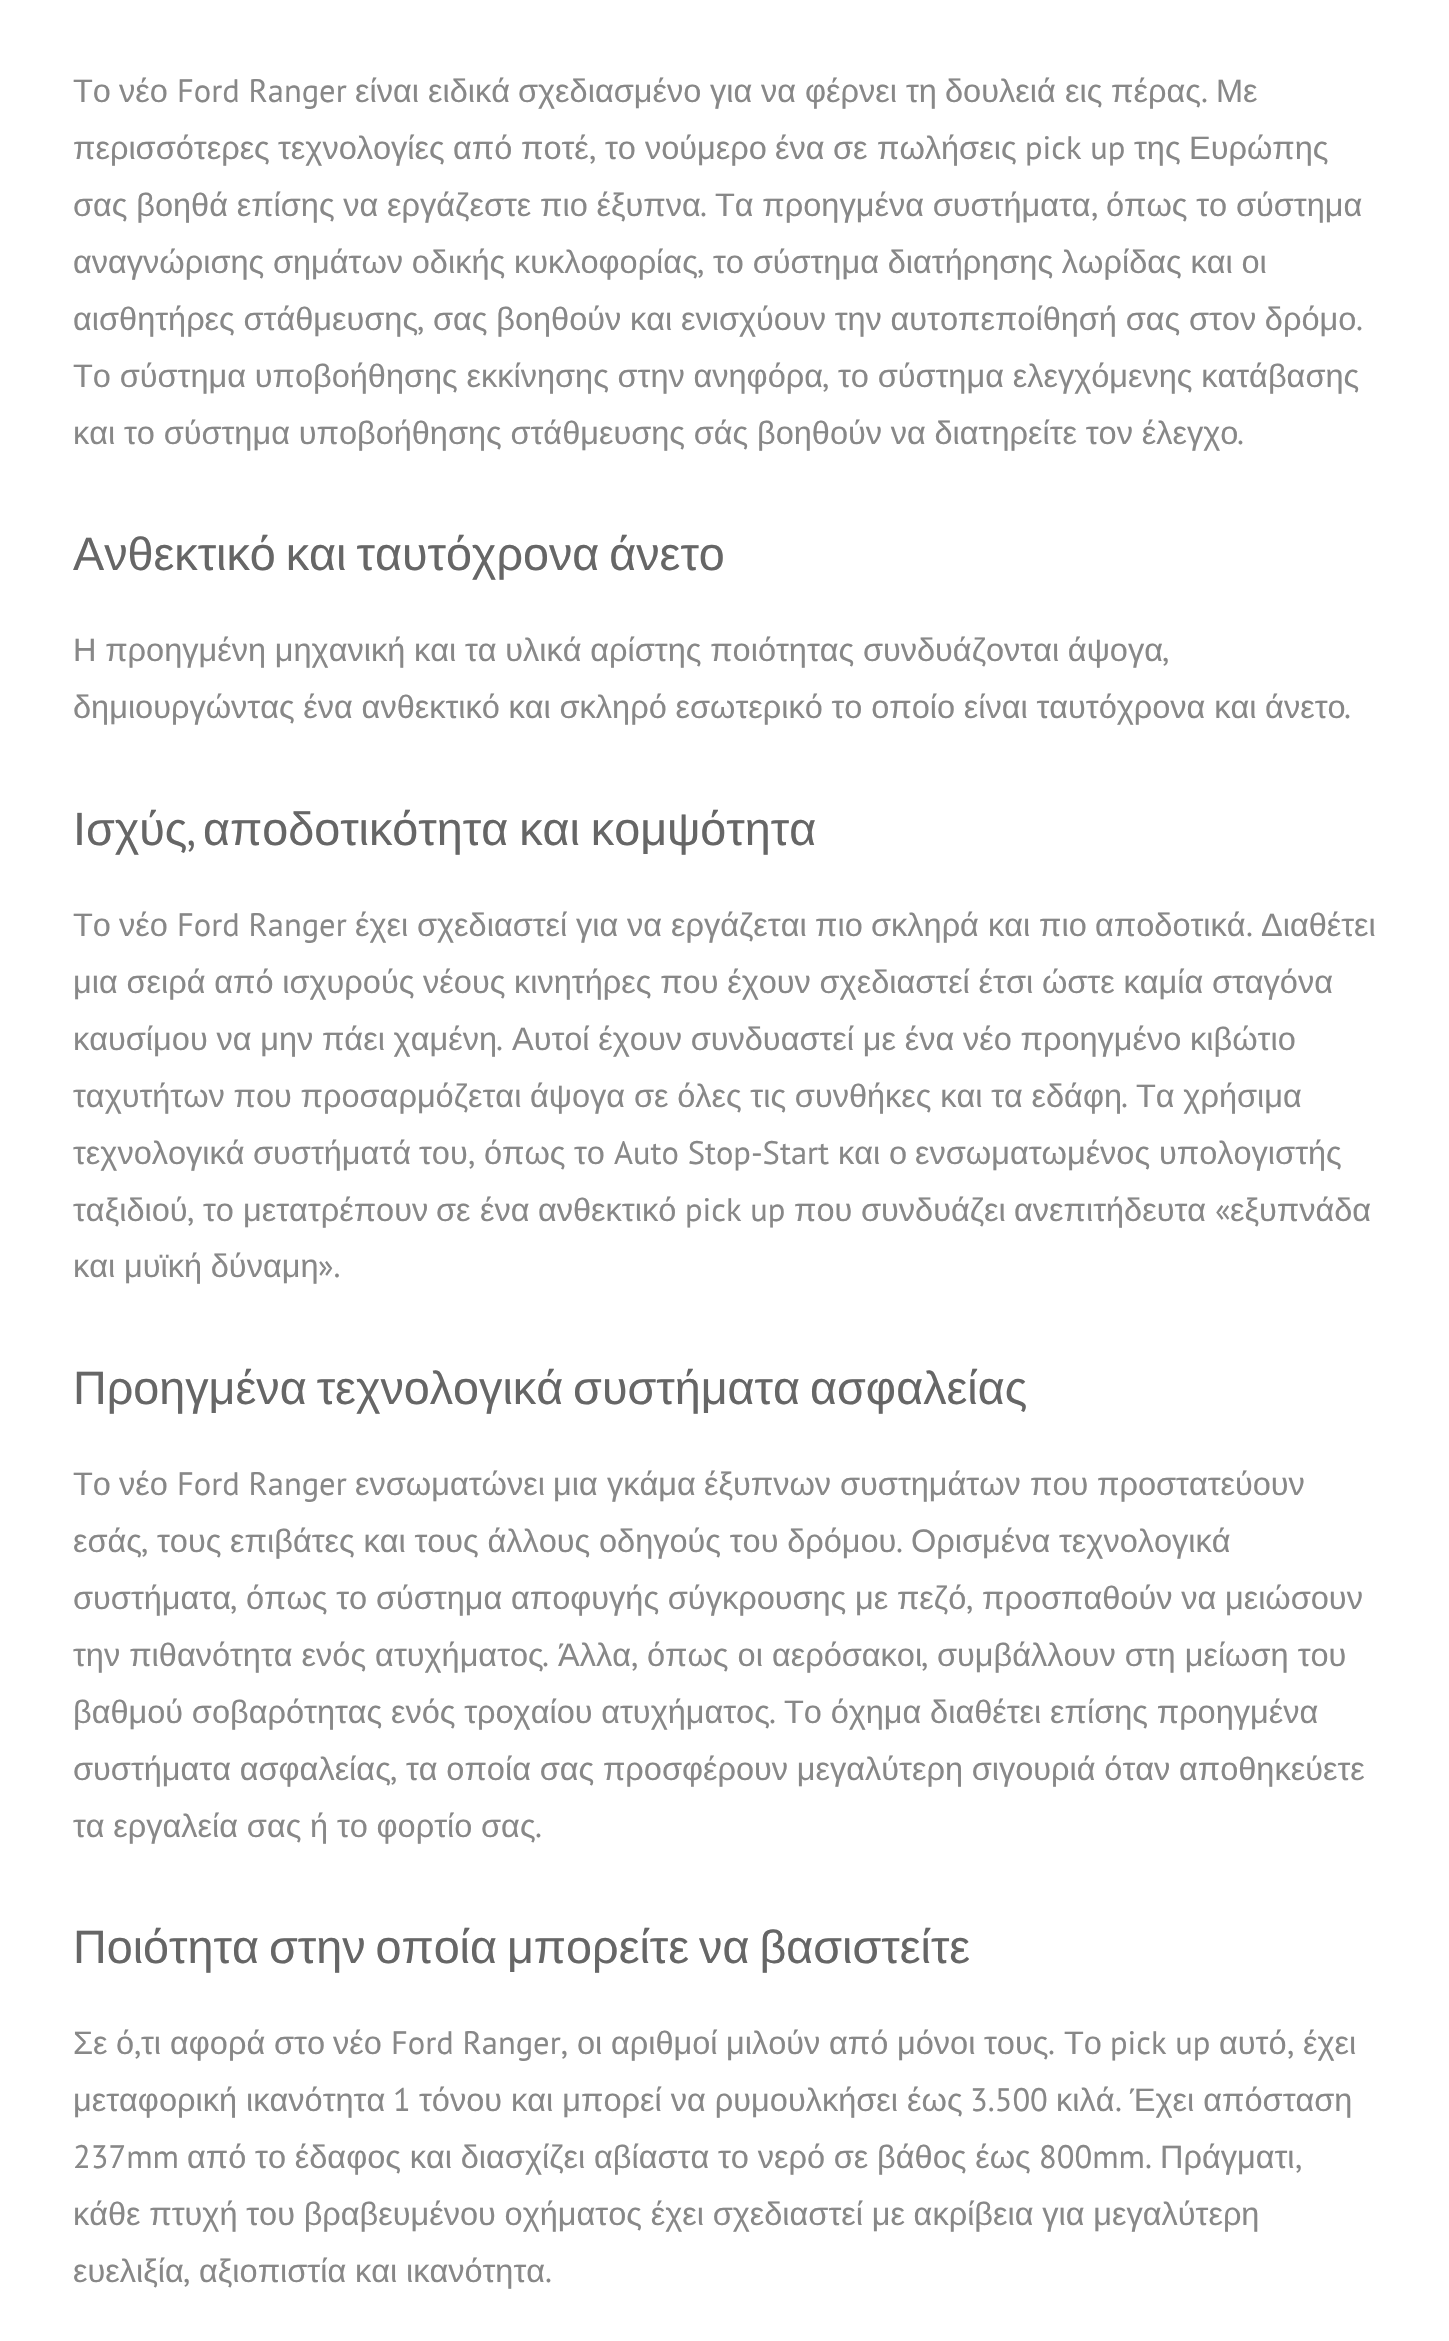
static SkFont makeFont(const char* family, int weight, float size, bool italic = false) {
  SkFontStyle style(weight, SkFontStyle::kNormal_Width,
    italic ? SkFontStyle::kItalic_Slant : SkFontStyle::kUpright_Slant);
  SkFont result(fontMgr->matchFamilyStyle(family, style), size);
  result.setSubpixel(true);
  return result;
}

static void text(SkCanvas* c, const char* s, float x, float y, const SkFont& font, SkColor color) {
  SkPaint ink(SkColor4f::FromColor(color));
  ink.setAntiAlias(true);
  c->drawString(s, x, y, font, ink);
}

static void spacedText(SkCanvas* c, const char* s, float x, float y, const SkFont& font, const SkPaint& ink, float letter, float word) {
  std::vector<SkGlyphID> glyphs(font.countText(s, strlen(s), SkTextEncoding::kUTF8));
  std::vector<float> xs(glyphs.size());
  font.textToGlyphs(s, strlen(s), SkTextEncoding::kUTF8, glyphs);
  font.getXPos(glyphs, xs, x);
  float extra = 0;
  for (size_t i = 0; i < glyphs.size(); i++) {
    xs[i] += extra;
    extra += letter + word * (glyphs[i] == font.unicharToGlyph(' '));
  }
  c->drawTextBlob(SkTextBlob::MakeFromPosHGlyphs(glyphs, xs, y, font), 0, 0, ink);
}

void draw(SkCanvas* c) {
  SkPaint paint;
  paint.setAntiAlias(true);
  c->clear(0xffffffff);
  SkFont face1 = makeFont("Liberation Sans", 400, 32.5f);
  text(c, "Το", 73, 102, face1, 0xff888888);
  text(c, "νέο", 119, 102, face1, 0xff888888);
  SkFont face2 = makeFont("PT Sans", 400, 32.5f);
  text(c, "Ford Ranger", 177, 102, face2, 0xff888888);
  text(c, "είναι", 355, 102, face1, 0xff888888);
  text(c, "ειδικά", 428, 102, face1, 0xff888888);
  text(c, "σχεδιασμένο", 518, 102, face1, 0xff888888);
  text(c, "για", 710, 102, face1, 0xff888888);
  text(c, "να", 761, 102, face1, 0xff888888);
  text(c, "φέρνει", 805, 102, face1, 0xff888888);
  text(c, "τη", 906, 102, face1, 0xff888888);
  text(c, "δουλειά", 945, 102, face1, 0xff888888);
  text(c, "εις", 1065, 102, face1, 0xff888888);
  text(c, "πέρας", 1111, 102, face1, 0xff888888);
  text(c, ".", 1201, 102, face2, 0xff888888);
  text(c, "Με", 1216, 102, face1, 0xff888888);
  text(c, "περισσότερες", 73, 159, face1, 0xff888888);
  text(c, "τεχνολογίες", 278, 159, face1, 0xff888888);
  text(c, "από", 453, 159, face1, 0xff888888);
  text(c, "ποτέ", 521, 159, face1, 0xff888888);
  text(c, ",", 589, 159, face2, 0xff888888);
  text(c, "το", 605, 159, face1, 0xff888888);
  text(c, "νούμερο", 645, 159, face1, 0xff888888);
  text(c, "ένα", 775, 159, face1, 0xff888888);
  text(c, "σε", 833, 159, face1, 0xff888888);
  text(c, "πωλήσεις", 877, 159, face1, 0xff888888);
  text(c, "pick up", 1025, 159, face2, 0xff888888);
  text(c, "της", 1134, 159, face1, 0xff888888);
  text(c, "Ευρώπης", 1189, 159, face1, 0xff888888);
  paint.setColor(0xff888888);
  spacedText(c, "σας βοηθά επίσης να εργάζεστε πιο έξυπνα", 73, 216, face1, paint, 0, -0.3f);
  text(c, ".", 700, 216, face2, 0xff888888);
  spacedText(c, "Τα προηγμένα συστήματα", 715, 216, face1, paint, 0, -0.3f);
  text(c, ",", 1091, 216, face2, 0xff888888);
  spacedText(c, "όπως το σύστημα", 1106, 216, face1, paint, 0, -0.3f);
  spacedText(c, "αναγνώρισης σημάτων οδικής κυκλοφορίας", 73, 273, face1, paint, 0, -0.3f);
  text(c, ",", 697, 273, face2, 0xff888888);
  spacedText(c, "το σύστημα διατήρησης λωρίδας και οι", 713, 273, face1, paint, 0, -0.3f);
  spacedText(c, "αισθητήρες στάθμευσης", 73, 330, face1, paint, 0, -0.3f);
  text(c, ",", 417, 330, face2, 0xff888888);
  spacedText(c, "σας βοηθούν και ενισχύουν την αυτοπεποίθησή σας στον δρόμο", 433, 330, face1, paint, 0, -0.3f);
  text(c, ".", 1356, 330, face2, 0xff888888);
  spacedText(c, "Το σύστημα υποβοήθησης εκκίνησης στην ανηφόρα", 73, 387, face1, paint, 0, -0.3f);
  text(c, ",", 822, 387, face2, 0xff888888);
  spacedText(c, "το σύστημα ελεγχόμενης κατάβασης", 838, 387, face1, paint, 0, -0.3f);
  spacedText(c, "και το σύστημα υποβοήθησης στάθμευσης σάς βοηθούν να διατηρείτε τον έλεγχο", 73, 444, face1, paint, 0, -0.3f);
  text(c, ".", 1237, 444, face2, 0xff888888);
  SkFont face3 = makeFont("Liberation Sans", 400, 46.7f);
  paint.setColor(0xff666666);
  spacedText(c, "Ανθεκτικό και ταυτόχρονα άνετο", 73, 570, face3, paint, 0, -3);
  paint.setColor(0xff888888);
  spacedText(c, "Η προηγμένη μηχανική και τα υλικά αρίστης ποιότητας συνδυάζονται άψογα", 73, 661, face1, paint, 0, -0.3f);
  text(c, ",", 1162, 661, face2, 0xff888888);
  spacedText(c, "δημιουργώντας ένα ανθεκτικό και σκληρό εσωτερικό το οποίο είναι ταυτόχρονα και άνετο", 73, 718, face1, paint, 0, -0.3f);
  text(c, ".", 1344, 718, face2, 0xff888888);
  text(c, "Ισχύς", 73, 845, face3, 0xff666666);
  SkFont face4 = makeFont("PT Sans Narrow", 400, 46.7f);
  text(c, ",", 187, 845, face4, 0xff666666);
  paint.setColor(0xff666666);
  spacedText(c, "αποδοτικότητα και κομψότητα", 203, 845, face3, paint, 0, -2);
  text(c, "Το", 73, 936, face1, 0xff888888);
  text(c, "νέο", 119, 936, face1, 0xff888888);
  text(c, "Ford Ranger", 177, 936, face2, 0xff888888);
  text(c, "έχει", 355, 936, face1, 0xff888888);
  text(c, "σχεδιαστεί", 417, 936, face1, 0xff888888);
  text(c, "για", 576, 936, face1, 0xff888888);
  text(c, "να", 627, 936, face1, 0xff888888);
  text(c, "εργάζεται", 671, 936, face1, 0xff888888);
  text(c, "πιο", 815, 936, face1, 0xff888888);
  text(c, "σκληρά", 871, 936, face1, 0xff888888);
  text(c, "και", 988, 936, face1, 0xff888888);
  text(c, "πιο", 1039, 936, face1, 0xff888888);
  text(c, "αποδοτικά", 1095, 936, face1, 0xff888888);
  text(c, ".", 1246, 936, face2, 0xff888888);
  text(c, "Διαθέτει", 1261, 936, face1, 0xff888888);
  paint.setColor(0xff888888);
  spacedText(c, "μια σειρά από ισχυρούς νέους κινητήρες που έχουν σχεδιαστεί έτσι ώστε καμία σταγόνα", 73, 993, face1, paint, 0, -0.3f);
  spacedText(c, "καυσίμου να μην πάει χαμένη", 73, 1050, face1, paint, 0, -0.3f);
  text(c, ".", 496, 1050, face2, 0xff888888);
  spacedText(c, "Αυτοί έχουν συνδυαστεί με ένα νέο προηγμένο κιβώτιο", 512, 1050, face1, paint, 0, -0.3f);
  spacedText(c, "ταχυτήτων που προσαρμόζεται άψογα σε όλες τις συνθήκες και τα εδάφη", 73, 1107, face1, paint, 0, -0.3f);
  text(c, ".", 1121, 1107, face2, 0xff888888);
  spacedText(c, "Τα χρήσιμα", 1136, 1107, face1, paint, 0, -0.3f);
  text(c, "τεχνολογικά", 73, 1164, face1, 0xff888888);
  text(c, "συστήματά", 253, 1164, face1, 0xff888888);
  text(c, "του", 419, 1164, face1, 0xff888888);
  text(c, ",", 468, 1164, face2, 0xff888888);
  text(c, "όπως", 484, 1164, face1, 0xff888888);
  text(c, "το", 574, 1164, face1, 0xff888888);
  text(c, "Auto Stop-Start", 614, 1164, face2, 0xff888888);
  text(c, "και", 838, 1164, face1, 0xff888888);
  text(c, "ο", 889, 1164, face1, 0xff888888);
  text(c, "ενσωματωμένος", 915, 1164, face1, 0xff888888);
  text(c, "υπολογιστής", 1159, 1164, face1, 0xff888888);
  text(c, "ταξιδιού", 73, 1221, face1, 0xff888888);
  text(c, "το", 203, 1221, face1, 0xff888888);
  text(c, "μετατρέπουν", 243, 1221, face1, 0xff888888);
  text(c, "σε", 436, 1221, face1, 0xff888888);
  text(c, "ένα", 480, 1221, face1, 0xff888888);
  text(c, "ανθεκτικό", 538, 1221, face1, 0xff888888);
  text(c, "pick up", 685, 1221, face2, 0xff888888);
  text(c, "που", 794, 1221, face1, 0xff888888);
  text(c, "συνδυάζει", 861, 1221, face1, 0xff888888);
  text(c, "ανεπιτήδευτα", 1014, 1221, face1, 0xff888888);
  text(c, "«", 1215, 1221, face2, 0xff888888);
  text(c, "εξυπνάδα", 1230, 1221, face1, 0xff888888);
  text(c, ",", 187, 1221, face2, 0xff888888);
  spacedText(c, "και μυϊκή δύναμη", 73, 1277, face1, paint, 0, -0.3f);
  text(c, "».", 318, 1277, face2, 0xff888888);
  paint.setColor(0xff666666);
  spacedText(c, "Προηγμένα τεχνολογικά συστήματα ασφαλείας", 73, 1404, face3, paint, 0, -3);
  text(c, "Το", 73, 1495, face1, 0xff888888);
  text(c, "νέο", 119, 1495, face1, 0xff888888);
  text(c, "Ford Ranger", 177, 1495, face2, 0xff888888);
  text(c, "ενσωματώνει", 355, 1495, face1, 0xff888888);
  text(c, "μια", 553, 1495, face1, 0xff888888);
  text(c, "γκάμα", 607, 1495, face1, 0xff888888);
  text(c, "έξυπνων", 704, 1495, face1, 0xff888888);
  text(c, "συστημάτων", 840, 1495, face1, 0xff888888);
  text(c, "που", 1030, 1495, face1, 0xff888888);
  text(c, "προστατεύουν", 1097, 1495, face1, 0xff888888);
  text(c, "εσάς", 73, 1552, face1, 0xff888888);
  text(c, ",", 141, 1552, face2, 0xff888888);
  paint.setColor(0xff888888);
  spacedText(c, "τους επιβάτες και τους άλλους οδηγούς του δρόμου", 157, 1552, face1, paint, 0, -0.3f);
  text(c, ".", 896, 1552, face2, 0xff888888);
  spacedText(c, "Ορισμένα τεχνολογικά", 911, 1552, face1, paint, 0, -0.3f);
  text(c, "συστήματα", 73, 1609, face1, 0xff888888);
  text(c, ",", 230, 1609, face2, 0xff888888);
  spacedText(c, "όπως το σύστημα αποφυγής σύγκρουσης με πεζό", 246, 1609, face1, paint, 0, -0.3f);
  text(c, ",", 966, 1609, face2, 0xff888888);
  spacedText(c, "προσπαθούν να μειώσουν", 982, 1609, face1, paint, 0, -0.3f);
  text(c, "την πιθανότητα ενός ατυχήματος", 73, 1666, face1, 0xff888888);
  text(c, ".", 542, 1666, face2, 0xff888888);
  text(c, "Άλλα", 558, 1666, face1, 0xff888888);
  text(c, ",", 631, 1666, face2, 0xff888888);
  text(c, "όπως οι αερόσακοι", 647, 1666, face1, 0xff888888);
  text(c, ",", 921, 1666, face2, 0xff888888);
  text(c, "συμβάλλουν στη μείωση του", 937, 1666, face1, 0xff888888);
  spacedText(c, "βαθμού σοβαρότητας ενός τροχαίου ατυχήματος", 73, 1723, face1, paint, 0, -0.3f);
  text(c, ".", 769, 1723, face2, 0xff888888);
  spacedText(c, "Το όχημα διαθέτει επίσης προηγμένα", 784, 1723, face1, paint, 0, -0.3f);
  spacedText(c, "συστήματα ασφαλείας", 73, 1780, face1, paint, 0, -0.3f);
  text(c, ",", 390, 1780, face2, 0xff888888);
  spacedText(c, "τα οποία σας προσφέρουν μεγαλύτερη σιγουριά όταν αποθηκεύετε", 406, 1780, face1, paint, 0, -0.3f);
  spacedText(c, "τα εργαλεία σας ή το φορτίο σας", 73, 1837, face1, paint, 0, -0.3f);
  text(c, ".", 535, 1837, face2, 0xff888888);
  paint.setColor(0xff666666);
  spacedText(c, "Ποιότητα στην οποία μπορείτε να βασιστείτε", 73, 1963, face3, paint, 0, -3);
  text(c, "Σε", 73, 2054, face1, 0xff888888);
  text(c, "ό", 116, 2054, face1, 0xff888888);
  text(c, ",", 134, 2054, face2, 0xff888888);
  text(c, "τι", 141, 2054, face1, 0xff888888);
  text(c, "αφορά", 170, 2054, face1, 0xff888888);
  text(c, "στο", 274, 2054, face1, 0xff888888);
  text(c, "νέο", 333, 2054, face1, 0xff888888);
  text(c, "Ford Ranger,", 391, 2054, face2, 0xff888888);
  text(c, "οι", 577, 2054, face1, 0xff888888);
  text(c, "αριθμοί", 611, 2054, face1, 0xff888888);
  text(c, "μιλούν", 726, 2054, face1, 0xff888888);
  text(c, "από", 829, 2054, face1, 0xff888888);
  text(c, "μόνοι", 897, 2054, face1, 0xff888888);
  text(c, "τους", 984, 2054, face1, 0xff888888);
  text(c, ".", 1048, 2054, face2, 0xff888888);
  text(c, "Το", 1064, 2054, face1, 0xff888888);
  text(c, "pick up", 1110, 2054, face2, 0xff888888);
  text(c, "αυτό", 1219, 2054, face1, 0xff888888);
  text(c, ",", 1287, 2054, face2, 0xff888888);
  text(c, "έχει", 1303, 2054, face1, 0xff888888);
  text(c, "μεταφορική ικανότητα", 73, 2111, face1, 0xff888888);
  text(c, "1", 393, 2111, face2, 0xff888888);
  text(c, "τόνου και μπορεί να ρυμουλκήσει έως", 419, 2111, face1, 0xff888888);
  text(c, "3.500", 970, 2111, face2, 0xff888888);
  text(c, "κιλά", 1056, 2111, face1, 0xff888888);
  text(c, ".", 1115, 2111, face2, 0xff888888);
  text(c, "Έχει απόσταση", 1130, 2111, face1, 0xff888888);
  text(c, "237mm", 73, 2168, face2, 0xff888888);
  paint.setColor(0xff888888);
  spacedText(c, "από το έδαφος και διασχίζει αβίαστα το νερό σε βάθος έως", 187, 2168, face1, paint, 0, -0.25f);
  text(c, "800mm.", 1039, 2168, face2, 0xff888888);
  text(c, "Πράγματι", 1160, 2168, face1, 0xff888888);
  text(c, ",", 1295, 2168, face2, 0xff888888);
  spacedText(c, "κάθε πτυχή του βραβευμένου οχήματος έχει σχεδιαστεί με ακρίβεια για μεγαλύτερη", 73, 2225, face1, paint, 0, -0.3f);
  text(c, "ευελιξία", 73, 2282, face1, 0xff888888);
  text(c, ",", 183, 2282, face2, 0xff888888);
  spacedText(c, "αξιοπιστία και ικανότητα", 199, 2282, face1, paint, 0, -0.3f);
  text(c, ".", 545, 2282, face2, 0xff888888);
}
